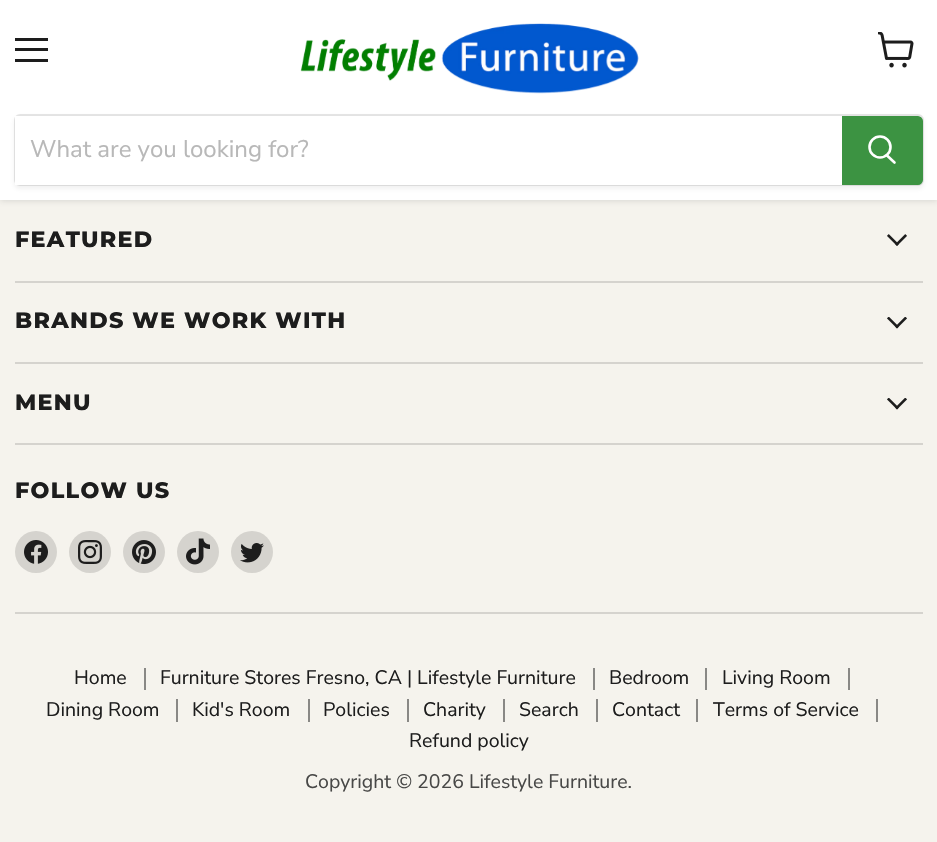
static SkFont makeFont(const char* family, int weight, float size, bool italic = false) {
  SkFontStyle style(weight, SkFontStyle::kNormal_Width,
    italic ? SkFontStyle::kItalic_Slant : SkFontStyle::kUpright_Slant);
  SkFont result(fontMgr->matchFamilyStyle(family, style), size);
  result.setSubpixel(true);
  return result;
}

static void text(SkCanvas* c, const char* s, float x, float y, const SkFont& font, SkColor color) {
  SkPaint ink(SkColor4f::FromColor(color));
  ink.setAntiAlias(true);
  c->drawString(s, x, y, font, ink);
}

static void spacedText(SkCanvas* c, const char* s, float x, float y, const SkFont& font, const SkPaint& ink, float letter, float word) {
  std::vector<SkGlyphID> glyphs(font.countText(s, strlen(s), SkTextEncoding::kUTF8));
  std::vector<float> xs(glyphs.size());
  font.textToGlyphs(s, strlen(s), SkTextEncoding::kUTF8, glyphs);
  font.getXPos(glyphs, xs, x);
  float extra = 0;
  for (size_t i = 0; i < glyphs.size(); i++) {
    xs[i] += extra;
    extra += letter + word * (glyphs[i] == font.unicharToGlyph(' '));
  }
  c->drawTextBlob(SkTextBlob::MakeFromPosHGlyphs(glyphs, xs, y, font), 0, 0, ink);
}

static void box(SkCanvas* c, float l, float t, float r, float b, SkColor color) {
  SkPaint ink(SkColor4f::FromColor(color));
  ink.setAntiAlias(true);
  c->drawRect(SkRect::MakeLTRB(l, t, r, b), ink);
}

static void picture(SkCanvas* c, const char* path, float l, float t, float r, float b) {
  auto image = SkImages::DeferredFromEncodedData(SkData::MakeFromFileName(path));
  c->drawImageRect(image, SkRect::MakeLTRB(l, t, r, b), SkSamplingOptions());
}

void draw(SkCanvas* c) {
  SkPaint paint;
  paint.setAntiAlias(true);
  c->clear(0xfff5f3ed);
  paint.setColor(0x40808080);
  paint.setMaskFilter(SkMaskFilter::MakeBlur(kNormal_SkBlurStyle, 3));
  c->drawRect(SkRect::MakeLTRB(0, 2, 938, 201), paint);
  paint.setMaskFilter(nullptr);
  box(c, 0, 0, 937, 200, 0xffffffff);
  box(c, 15, 38, 48, 41, 0xff1d1d1d);
  box(c, 15, 48, 48, 51, 0xff1d1d1d);
  box(c, 15, 59, 48, 62, 0xff1d1d1d);
  picture(c, "img_01.png", 878, 32, 914, 68);
  picture(c, "img_02.png", 300, 23, 639, 94);
  paint.setColor(0x1c808080);
  paint.setMaskFilter(SkMaskFilter::MakeBlur(kNormal_SkBlurStyle, 2));
  c->drawRoundRect(SkRect::MakeLTRB(14, 117, 924, 189), 6, 6, paint);
  paint.setMaskFilter(nullptr);
  paint.setStyle(SkPaint::kStroke_Style);
  paint.setStrokeWidth(2);
  paint.setColor(0x33808080);
  c->drawRoundRect(SkRect::MakeLTRB(15, 115, 923, 185), 5, 5, paint);
  box(c, 15, 116, 842, 185, 0xffffffff);
  SkFont face1 = makeFont("Nunito Sans", 400, 24);
  text(c, "What are you looking for?", 30, 157, face1, 0xffb8b8b8);
  paint.setStyle(SkPaint::kFill_Style);
  paint.setColor(0xff3c9342);
  c->drawPath(SkPathBuilder().moveTo(843, 117).lineTo(918, 117).cubicTo(920, 117, 922, 119, 922, 121).lineTo(922, 180).cubicTo(922, 182, 920, 184, 918, 184).lineTo(843, 184).close().detach(), paint);
  paint.setStyle(SkPaint::kStroke_Style);
  c->drawPath(SkPathBuilder().moveTo(843, 117).lineTo(918, 117).cubicTo(920, 117, 922, 119, 922, 121).lineTo(922, 180).cubicTo(922, 182, 920, 184, 918, 184).lineTo(843, 184).close().detach(), paint);
  paint.setStrokeWidth(2.6f);
  paint.setStrokeCap(SkPaint::kRound_Cap);
  paint.setColor(0xffffffff);
  c->drawPath(SkPathBuilder().moveTo(894.5f, 162.5f).lineTo(887, 155.5f).detach(), paint);
  paint.setStrokeCap(SkPaint::kButt_Cap);
  c->drawCircle(880, 147, 10.5f, paint);
  box(c, 15, 281, 923, 283, 0xffd5d3ce);
  SkFont face2 = makeFont("Montserrat", 800, 22.25f);
  paint.setStyle(SkPaint::kFill_Style);
  paint.setColor(0xff1d1d1d);
  spacedText(c, "FEATURED", 15, 247, face2, paint, 1.3f, 0);
  picture(c, "img_03.png", 887, 234, 907, 246);
  box(c, 15, 362, 923, 364, 0xffd5d3ce);
  spacedText(c, "BRANDS WE WORK WITH", 15, 328, face2, paint, 1.3f, 0);
  picture(c, "img_04.png", 887, 317, 907, 329);
  box(c, 15, 443, 923, 445, 0xffd5d3ce);
  spacedText(c, "MENU", 15, 410, face2, paint, 1.3f, 0);
  picture(c, "img_04.png", 887, 398, 907, 410);
  box(c, 15, 612, 923, 614, 0xffd5d3ce);
  spacedText(c, "FOLLOW US", 15, 498, face2, paint, 1.3f, 0);
  paint.setColor(0xffd5d3ce);
  c->drawCircle(36, 552, 21, paint);
  picture(c, "img_05.png", 24, 540, 48, 564);
  c->drawCircle(90, 552, 21, paint);
  picture(c, "img_06.png", 78, 540, 102, 564);
  c->drawCircle(144, 552, 21, paint);
  picture(c, "img_07.png", 132, 540, 156, 565);
  c->drawCircle(198, 552, 21, paint);
  picture(c, "img_08.png", 186, 538, 210, 565);
  c->drawCircle(252, 552, 21, paint);
  picture(c, "img_09.png", 240, 543, 264, 563);
  box(c, 144, 668, 146, 690, 0xff898885);
  SkFont face3 = makeFont("Nunito Sans", 400, 19.5f);
  text(c, "Home", 74, 684, face3, 0xff1d1d1d);
  box(c, 593, 668, 595, 690, 0xff898885);
  text(c, "Furniture Stores Fresno, CA | Lifestyle Furniture", 160, 684, face3, 0xff1d1d1d);
  box(c, 705, 668, 707, 690, 0xff898885);
  text(c, "Bedroom", 609, 684, face3, 0xff1d1d1d);
  box(c, 848, 668, 850, 690, 0xff898885);
  text(c, "Living Room", 722, 684, face3, 0xff1d1d1d);
  box(c, 176, 699, 178, 722, 0xff898885);
  text(c, "Dining Room", 46, 716, face3, 0xff1d1d1d);
  box(c, 308, 699, 310, 722, 0xff898885);
  text(c, "Kid's Room", 192, 716, face3, 0xff1d1d1d);
  box(c, 407, 699, 409, 722, 0xff898885);
  text(c, "Policies", 323, 716, face3, 0xff1d1d1d);
  box(c, 503, 699, 505, 722, 0xff898885);
  text(c, "Charity", 423, 716, face3, 0xff1d1d1d);
  box(c, 596, 699, 598, 722, 0xff898885);
  text(c, "Search", 519, 716, face3, 0xff1d1d1d);
  box(c, 696, 699, 698, 722, 0xff898885);
  text(c, "Contact", 612, 716, face3, 0xff1d1d1d);
  box(c, 876, 699, 878, 722, 0xff898885);
  text(c, "Terms of Service", 713, 716, face3, 0xff1d1d1d);
  text(c, "Refund policy", 409, 747, face3, 0xff1d1d1d);
  text(c, "Copyright © 2026 Lifestyle Furniture.", 305, 788, face3, 0xff484847);
}
